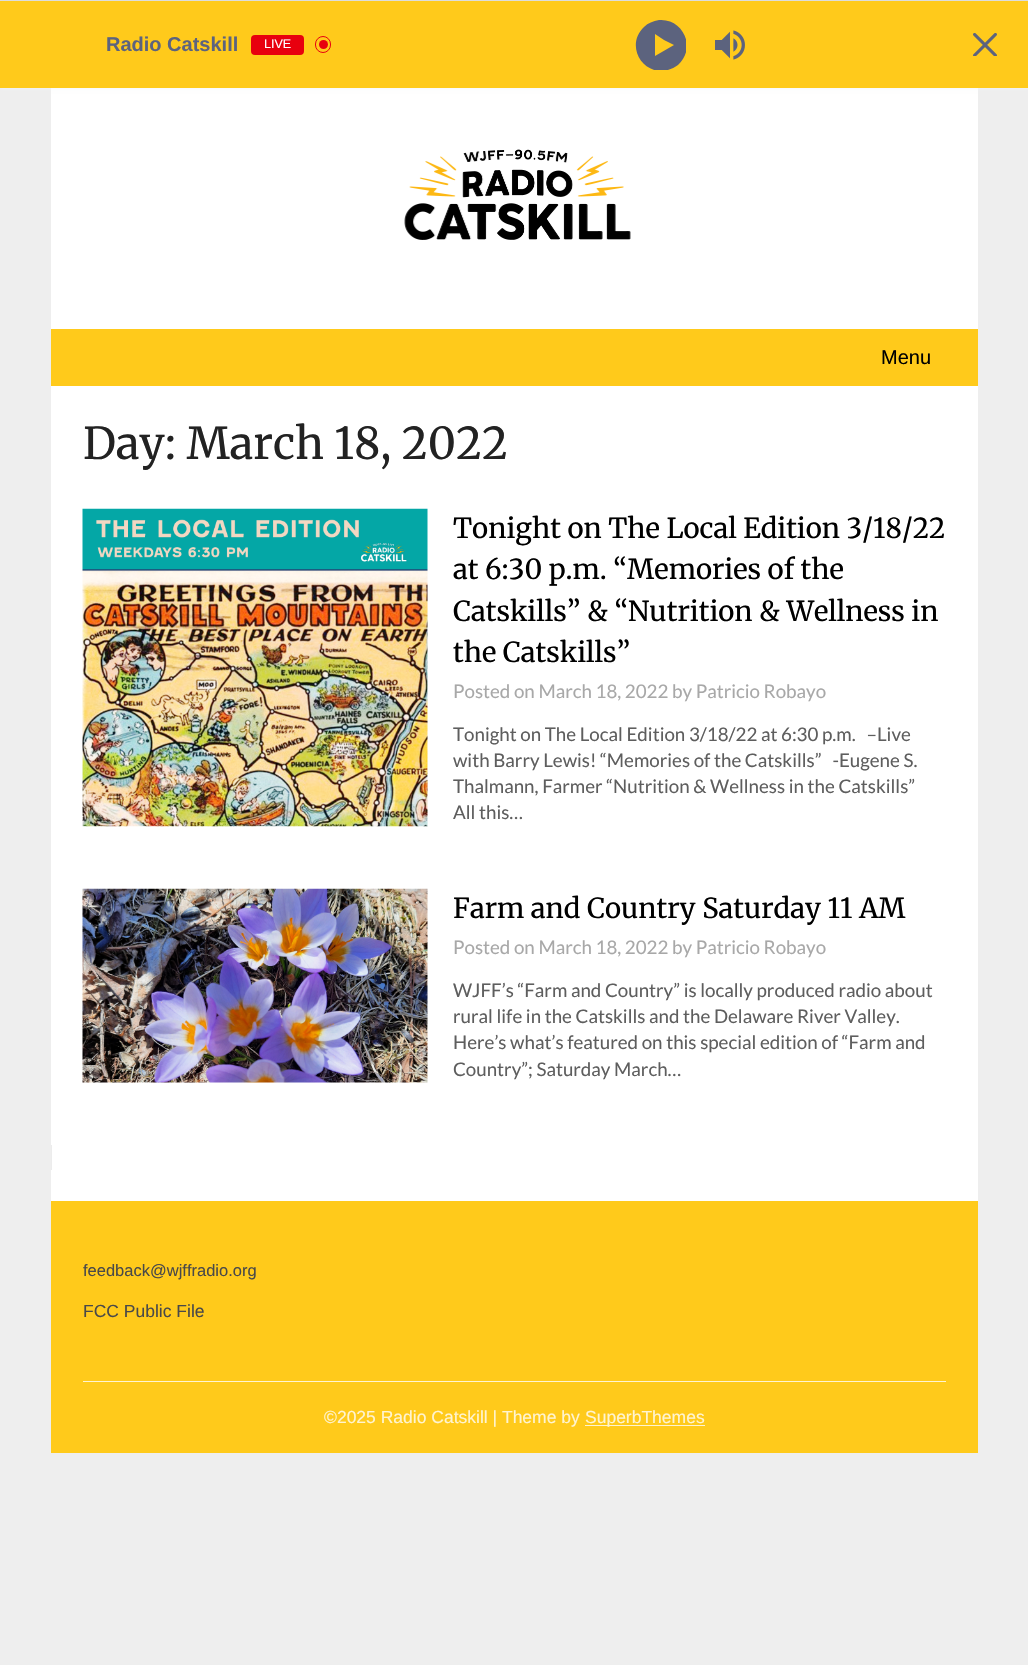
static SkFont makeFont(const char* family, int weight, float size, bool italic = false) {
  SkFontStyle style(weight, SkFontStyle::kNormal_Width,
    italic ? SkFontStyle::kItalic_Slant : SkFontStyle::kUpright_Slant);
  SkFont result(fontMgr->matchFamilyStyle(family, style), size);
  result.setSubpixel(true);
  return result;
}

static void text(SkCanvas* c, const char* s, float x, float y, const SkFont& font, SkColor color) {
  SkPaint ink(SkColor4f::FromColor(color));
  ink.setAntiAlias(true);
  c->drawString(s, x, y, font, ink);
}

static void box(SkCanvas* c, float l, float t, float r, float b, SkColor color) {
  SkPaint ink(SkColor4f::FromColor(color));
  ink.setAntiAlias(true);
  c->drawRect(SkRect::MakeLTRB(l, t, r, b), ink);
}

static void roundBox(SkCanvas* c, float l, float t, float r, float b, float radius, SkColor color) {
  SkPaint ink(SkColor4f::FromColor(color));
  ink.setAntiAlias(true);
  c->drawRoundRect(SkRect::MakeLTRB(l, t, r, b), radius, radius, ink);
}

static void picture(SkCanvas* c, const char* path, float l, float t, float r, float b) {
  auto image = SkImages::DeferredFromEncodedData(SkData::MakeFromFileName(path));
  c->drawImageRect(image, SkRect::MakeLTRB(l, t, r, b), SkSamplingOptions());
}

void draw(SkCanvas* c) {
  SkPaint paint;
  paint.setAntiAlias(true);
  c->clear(0xffeeeeee);
  box(c, 51, 88, 978, 329, 0xffffffff);
  paint.setColor(0xfff4f7f9);
  paint.setMaskFilter(SkMaskFilter::MakeBlur(kNormal_SkBlurStyle, 2));
  c->drawRect(SkRect::MakeLTRB(0, 0, 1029, 88), paint);
  paint.setMaskFilter(nullptr);
  box(c, 0, 1, 1028, 88, 0xffffca1b);
  box(c, 0, 0, 1028, 1, 0xffdddddd);
  SkFont face1 = makeFont("Liberation Sans", 700, 20);
  text(c, "Radio Catskill", 106, 51, face1, 0xff5c637e);
  roundBox(c, 251, 35, 304, 55, 4, 0xffe8000e);
  SkFont face2 = makeFont("Liberation Sans", 400, 12.5f);
  text(c, "LIVE", 264, 48, face2, 0xffffffff);
  paint.setColor(0xffe8000e);
  c->drawCircle(323.5f, 44.5f, 4.5f, paint);
  paint.setStyle(SkPaint::kStroke_Style);
  paint.setStrokeWidth(1);
  c->drawRoundRect(SkRect::MakeLTRB(315.5f, 36.5f, 330.5f, 52.5f), 7.5f, 7.5f, paint);
  c->save();
  c->clipRect(SkRect::MakeLTRB(635, 19, 686, 70));
  paint.setStyle(SkPaint::kFill_Style);
  paint.setColor(0xff5c637e);
  c->drawPath(SkPathBuilder().moveTo(659, 20).cubicTo(653, 21, 648, 23, 644, 27).cubicTo(626, 44, 640, 73, 664, 71).cubicTo(669, 70, 674, 68, 678, 65).cubicTo(697, 48, 683, 18, 659, 20).close().moveTo(664, 40).lineTo(674, 45).lineTo(655, 56).lineTo(655, 34).close().detach(), paint);
  c->restore();
  picture(c, "img_01.png", 715, 30, 745, 60);
  picture(c, "img_02.png", 973, 33, 997, 56);
  picture(c, "img_03.png", 404, 149, 631, 240);
  box(c, 51, 329, 978, 386, 0xffffca1b);
  SkFont face3 = makeFont("Liberation Sans", 400, 20);
  text(c, "Menu", 881, 364, face3, 0xff000000);
  box(c, 51, 386, 978, 1201, 0xffffffff);
  SkFont face4 = makeFont("Merriweather", 400, 43.75f);
  text(c, "Day: March 18, 2022", 83, 459, face4, 0xff222222);
  picture(c, "img_04.png", 82, 508, 428, 827);
  SkFont face5 = makeFont("Merriweather", 400, 27.5f);
  text(c, "Tonight on The Local Edition 3/18/22", 453, 538, face5, 0xff000000);
  text(c, "at 6:30 p.m. “Memories of the", 453, 579, face5, 0xff000000);
  text(c, "Catskills” & “Nutrition & Wellness in", 453, 621, face5, 0xff000000);
  text(c, "the Catskills”", 453, 662, face5, 0xff000000);
  SkFont face6 = makeFont("Lato", 400, 18.75f);
  text(c, "Posted on March 18, 2022 by Patricio Robayo", 453, 698, face6, 0xffa8a8a8);
  text(c, "Tonight on The Local Edition 3/18/22 at 6:30 p.m.   –Live", 453, 741, face6, 0xff5e5e5e);
  text(c, "with Barry Lewis! “Memories of the Catskills”   -Eugene S.", 453, 767, face6, 0xff5e5e5e);
  text(c, "Thalmann, Farmer “Nutrition & Wellness in the Catskills”", 453, 793, face6, 0xff5e5e5e);
  text(c, "All this…", 453, 819, face6, 0xff5e5e5e);
  picture(c, "img_05.png", 82, 888, 428, 1083);
  text(c, "Farm and Country Saturday 11 AM", 453, 918, face5, 0xff000000);
  text(c, "Posted on March 18, 2022 by Patricio Robayo", 453, 954, face6, 0xffa8a8a8);
  text(c, "WJFF’s “Farm and Country” is locally produced radio about", 453, 997, face6, 0xff5e5e5e);
  text(c, "rural life in the Catskills and the Delaware River Valley.", 453, 1023, face6, 0xff5e5e5e);
  text(c, "Here’s what’s featured on this special edition of “Farm and", 453, 1049, face6, 0xff5e5e5e);
  text(c, "Country”; Saturday March…", 453, 1076, face6, 0xff5e5e5e);
  box(c, 51, 1145, 52, 1170, 0xffececec);
  box(c, 51, 1201, 978, 1453, 0xffffca1b);
  SkFont face7 = makeFont("Liberation Sans", 400, 16.5f);
  text(c, "feedback@wjffradio.org", 83, 1276, face7, 0xff494949);
  SkFont face8 = makeFont("Liberation Sans", 400, 17.5f);
  text(c, "FCC Public File", 83, 1317, face8, 0xff494949);
  box(c, 83, 1381, 946, 1382, 0xfffff4d1);
  text(c, "©2025 Radio Catskill | Theme by", 324, 1423, face8, 0xfffff4d1);
  box(c, 585, 1425, 705, 1426, 0xfffff4d1);
  text(c, "SuperbThemes", 585, 1423, face8, 0xfffff4d1);
}
